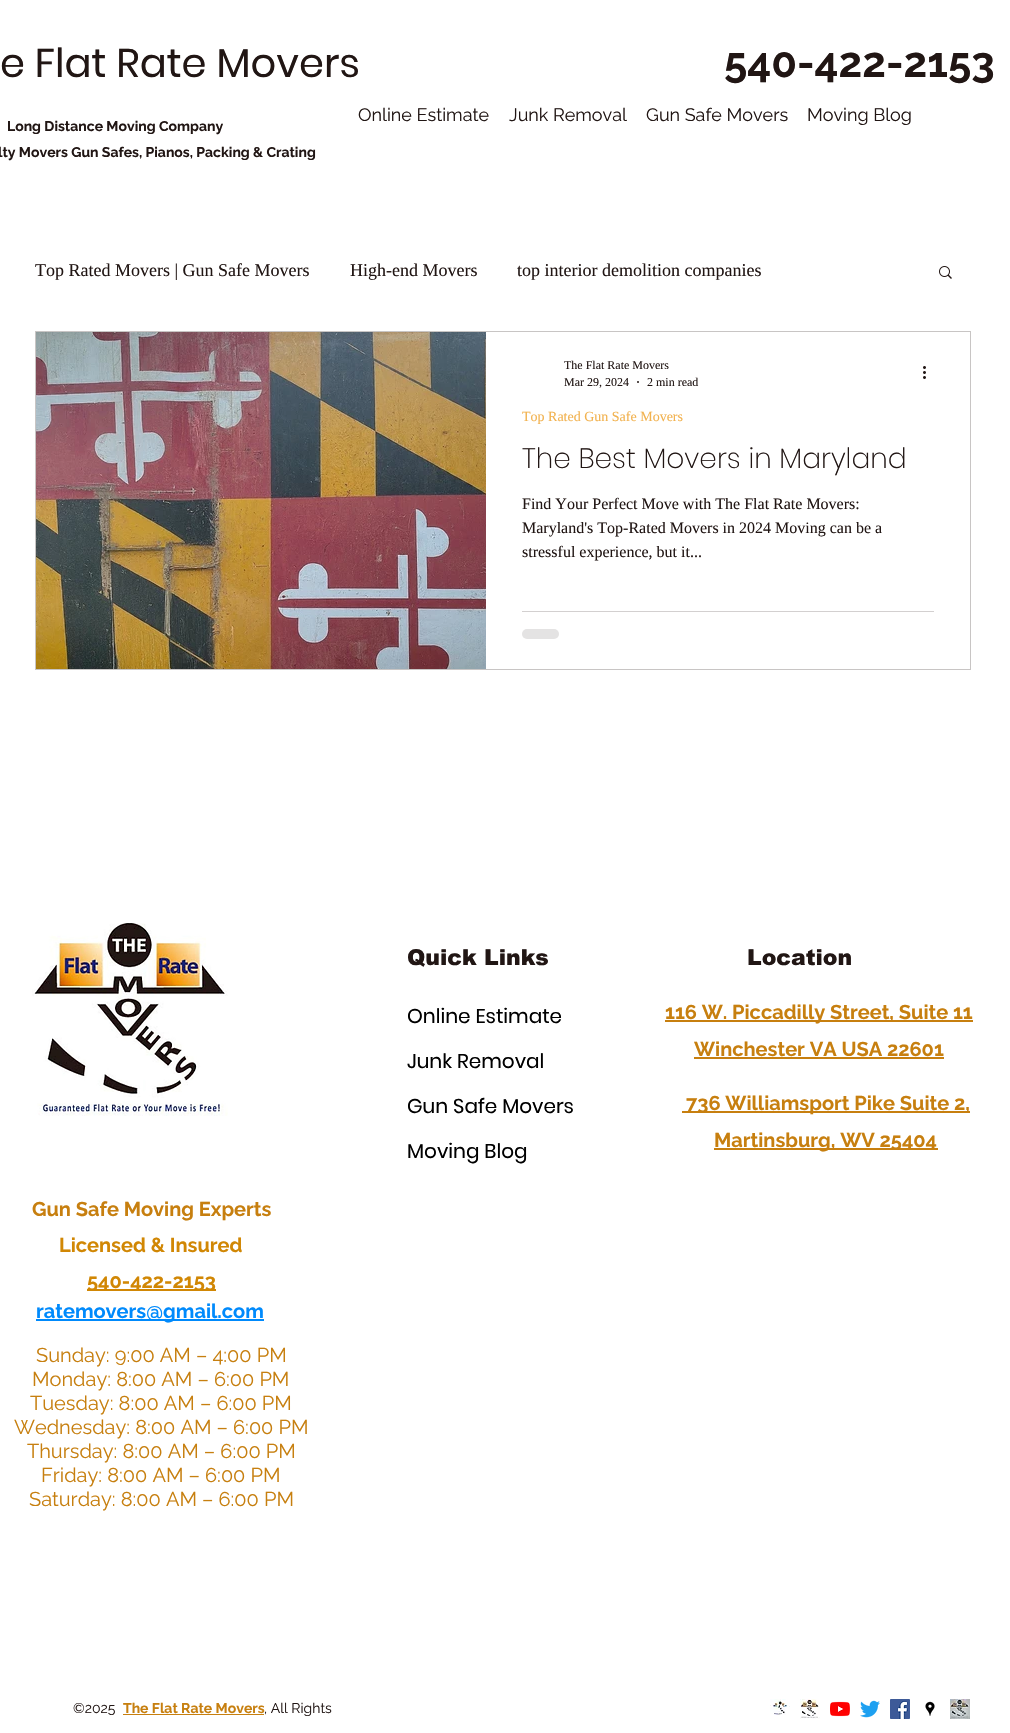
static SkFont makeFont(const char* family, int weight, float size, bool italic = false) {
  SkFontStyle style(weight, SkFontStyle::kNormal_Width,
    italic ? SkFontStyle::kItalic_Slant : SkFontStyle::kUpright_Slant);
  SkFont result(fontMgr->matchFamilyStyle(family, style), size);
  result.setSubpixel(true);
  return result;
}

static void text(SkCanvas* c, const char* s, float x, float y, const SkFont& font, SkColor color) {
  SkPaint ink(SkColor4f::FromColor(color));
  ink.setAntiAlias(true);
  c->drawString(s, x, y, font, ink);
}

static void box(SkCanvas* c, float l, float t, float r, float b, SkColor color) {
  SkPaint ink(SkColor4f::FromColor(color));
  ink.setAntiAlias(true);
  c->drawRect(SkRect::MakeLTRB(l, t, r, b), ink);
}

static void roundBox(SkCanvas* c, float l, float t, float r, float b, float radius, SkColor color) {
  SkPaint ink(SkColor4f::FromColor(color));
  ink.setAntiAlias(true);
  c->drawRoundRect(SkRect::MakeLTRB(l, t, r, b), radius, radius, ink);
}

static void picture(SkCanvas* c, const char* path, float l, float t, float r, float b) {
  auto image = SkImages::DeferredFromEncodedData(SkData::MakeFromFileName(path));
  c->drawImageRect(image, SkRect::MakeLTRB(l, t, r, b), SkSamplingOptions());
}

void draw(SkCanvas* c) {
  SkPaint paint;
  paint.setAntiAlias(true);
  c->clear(0xffffffff);
  SkFont face1 = makeFont("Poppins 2", 400, 40);
  text(c, "e Flat Rate Movers", 0, 77, face1, 0xff211614);
  SkFont face2 = makeFont("Raleway", 700, 42);
  text(c, "540-422-2153", 724, 77, face2, 0xff211614);
  SkFont face3 = makeFont("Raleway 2", 400, 18);
  text(c, "Online Estimate", 358, 121, face3, 0xff211614);
  text(c, "Junk Removal", 509, 121, face3, 0xff211614);
  text(c, "Gun Safe Movers", 646, 121, face3, 0xff211614);
  text(c, "Moving Blog", 807, 121, face3, 0xff211614);
  SkFont face4 = makeFont("Raleway", 700, 14);
  text(c, "Long Distance Moving Company", 7, 131, face4, 0xff211614);
  text(c, "lty Movers Gun Safes, Pianos, Packing & Crating", -2, 157, face4, 0xff211614);
  SkFont face5 = makeFont("Liberation Serif", 400, 18);
  text(c, "Top Rated Movers | Gun Safe Movers", 35, 276, face5, 0xff211614);
  text(c, "High-end Movers", 350, 276, face5, 0xff211614);
  text(c, "top interior demolition companies", 517, 276, face5, 0xff211614);
  picture(c, "img_01.png", 939, 266, 952, 279);
  paint.setStyle(SkPaint::kStroke_Style);
  paint.setStrokeWidth(1);
  paint.setColor(0xffc8c5c4);
  c->drawRect(SkRect::MakeLTRB(35.5f, 331.5f, 970.5f, 669.5f), paint);
  picture(c, "img_02.png", 36, 332, 486, 669);
  SkFont face6 = makeFont("Liberation Serif", 400, 12);
  text(c, "The Flat Rate Movers", 564, 369, face6, 0xff211614);
  text(c, "Mar 29, 2024", 564, 386, face6, 0xff211614);
  paint.setStyle(SkPaint::kFill_Style);
  paint.setColor(0xff211614);
  c->drawCircle(638, 382, 1, paint);
  text(c, "2 min read", 647, 386, face6, 0xff211614);
  picture(c, "img_03.png", 923, 366, 926, 379);
  SkFont face7 = makeFont("Liberation Serif", 400, 14);
  text(c, "Top Rated Gun Safe Movers", 522, 421, face7, 0xfff2b24f);
  SkFont face8 = makeFont("Poppins", 200, 28);
  text(c, "The Best Movers in Maryland", 522, 468, face8, 0xff211614);
  SkFont face9 = makeFont("Liberation Serif", 400, 16);
  text(c, "Find Your Perfect Move with The Flat Rate Movers:", 522, 509, face9, 0xff211614);
  text(c, "Maryland's Top-Rated Movers in 2024 Moving can be a", 522, 533, face9, 0xff211614);
  text(c, "stressful experience, but it...", 522, 557, face9, 0xff211614);
  box(c, 522, 611, 934, 612, 0xffd3d0d0);
  roundBox(c, 522, 629, 559, 639, 5, 0xffe4e3e3);
  picture(c, "img_04.png", 32, 923, 228, 1116);
  SkFont face10 = makeFont("arial", 900, 22);
  text(c, "Quick Links", 407, 965, face10, 0xff211614);
  text(c, "Location", 747, 965, face10, 0xff211614);
  SkFont face11 = makeFont("Poppins", 400, 20);
  text(c, "Online Estimate", 407, 1023, face11, 0xff000000);
  text(c, "Junk Removal", 407, 1068, face11, 0xff000000);
  text(c, "Gun Safe Movers", 407, 1113, face11, 0xff000000);
  text(c, "Moving Blog", 407, 1158, face11, 0xff000000);
  box(c, 665, 1020, 825, 1022, 0xffc77f0f);
  SkFont face12 = makeFont("Raleway", 700, 20);
  text(c, "116 W. Piccadilly", 665, 1019, face12, 0xffc77f0f);
  box(c, 825, 1020, 973, 1022, 0xffc77f0f);
  text(c, "Street, Suite 11", 830, 1019, face12, 0xffc77f0f);
  text(c, "Winchester VA USA 22601", 694, 1056, face12, 0xffc77f0f);
  box(c, 694, 1057, 944, 1059, 0xffc77f0f);
  box(c, 682, 1111, 970, 1113, 0xffc77f0f);
  text(c, "736 Williamsport Pike Suite 2,", 686, 1110, face12, 0xffc77f0f);
  box(c, 714, 1148, 938, 1150, 0xffc77f0f);
  text(c, "Martinsburg, WV 25404", 714, 1147, face12, 0xffc77f0f);
  text(c, "Gun Safe Moving Experts", 32, 1216, face12, 0xffc77f0f);
  text(c, "Licensed & Insured", 59, 1252, face12, 0xffd18704);
  box(c, 87, 1289, 216, 1291, 0xffd18704);
  text(c, "540-422-2153", 87, 1288, face12, 0xffd18704);
  box(c, 36, 1319, 264, 1321, 0xff008afc);
  text(c, "ratemovers@gmail.com", 36, 1318, face12, 0xff008afc);
  SkFont face13 = makeFont("Raleway", 400, 20);
  text(c, "Sunday: 9:00 AM – 4:00 PM", 36, 1362, face13, 0xffc77f0f);
  text(c, "Monday: 8:00 AM – 6:00 PM", 32, 1386, face13, 0xffc77f0f);
  text(c, "Tuesday: 8:00 AM – 6:00 PM", 30, 1410, face13, 0xffc77f0f);
  text(c, "Wednesday: 8:00 AM – 6:00 PM", 14, 1434, face13, 0xffc77f0f);
  text(c, "Thursday: 8:00 AM – 6:00 PM", 27, 1458, face13, 0xffc77f0f);
  text(c, "Friday: 8:00 AM – 6:00 PM", 41, 1482, face13, 0xffc77f0f);
  text(c, "Saturday: 8:00 AM – 6:00 PM", 29, 1506, face13, 0xffc77f0f);
  SkFont face14 = makeFont("Raleway 2", 400, 14);
  text(c, "©2025", 73, 1713, face14, 0xff211614);
  text(c, "The Flat Rate Movers", 123, 1713, face4, 0xffc77f0f);
  text(c, ", All Rights", 264, 1713, face14, 0xff211614);
  box(c, 123, 1714, 264, 1715, 0xffc77f0f);
  picture(c, "img_05.png", 770, 1699, 790, 1715);
  picture(c, "img_06.png", 800, 1699, 820, 1719);
  picture(c, "img_07.png", 830, 1701, 850, 1717);
  picture(c, "img_08.png", 860, 1700, 880, 1718);
  picture(c, "img_09.png", 890, 1699, 910, 1719);
  picture(c, "img_10.png", 925, 1701, 935, 1716);
  picture(c, "img_11.png", 950, 1699, 970, 1719);
}
